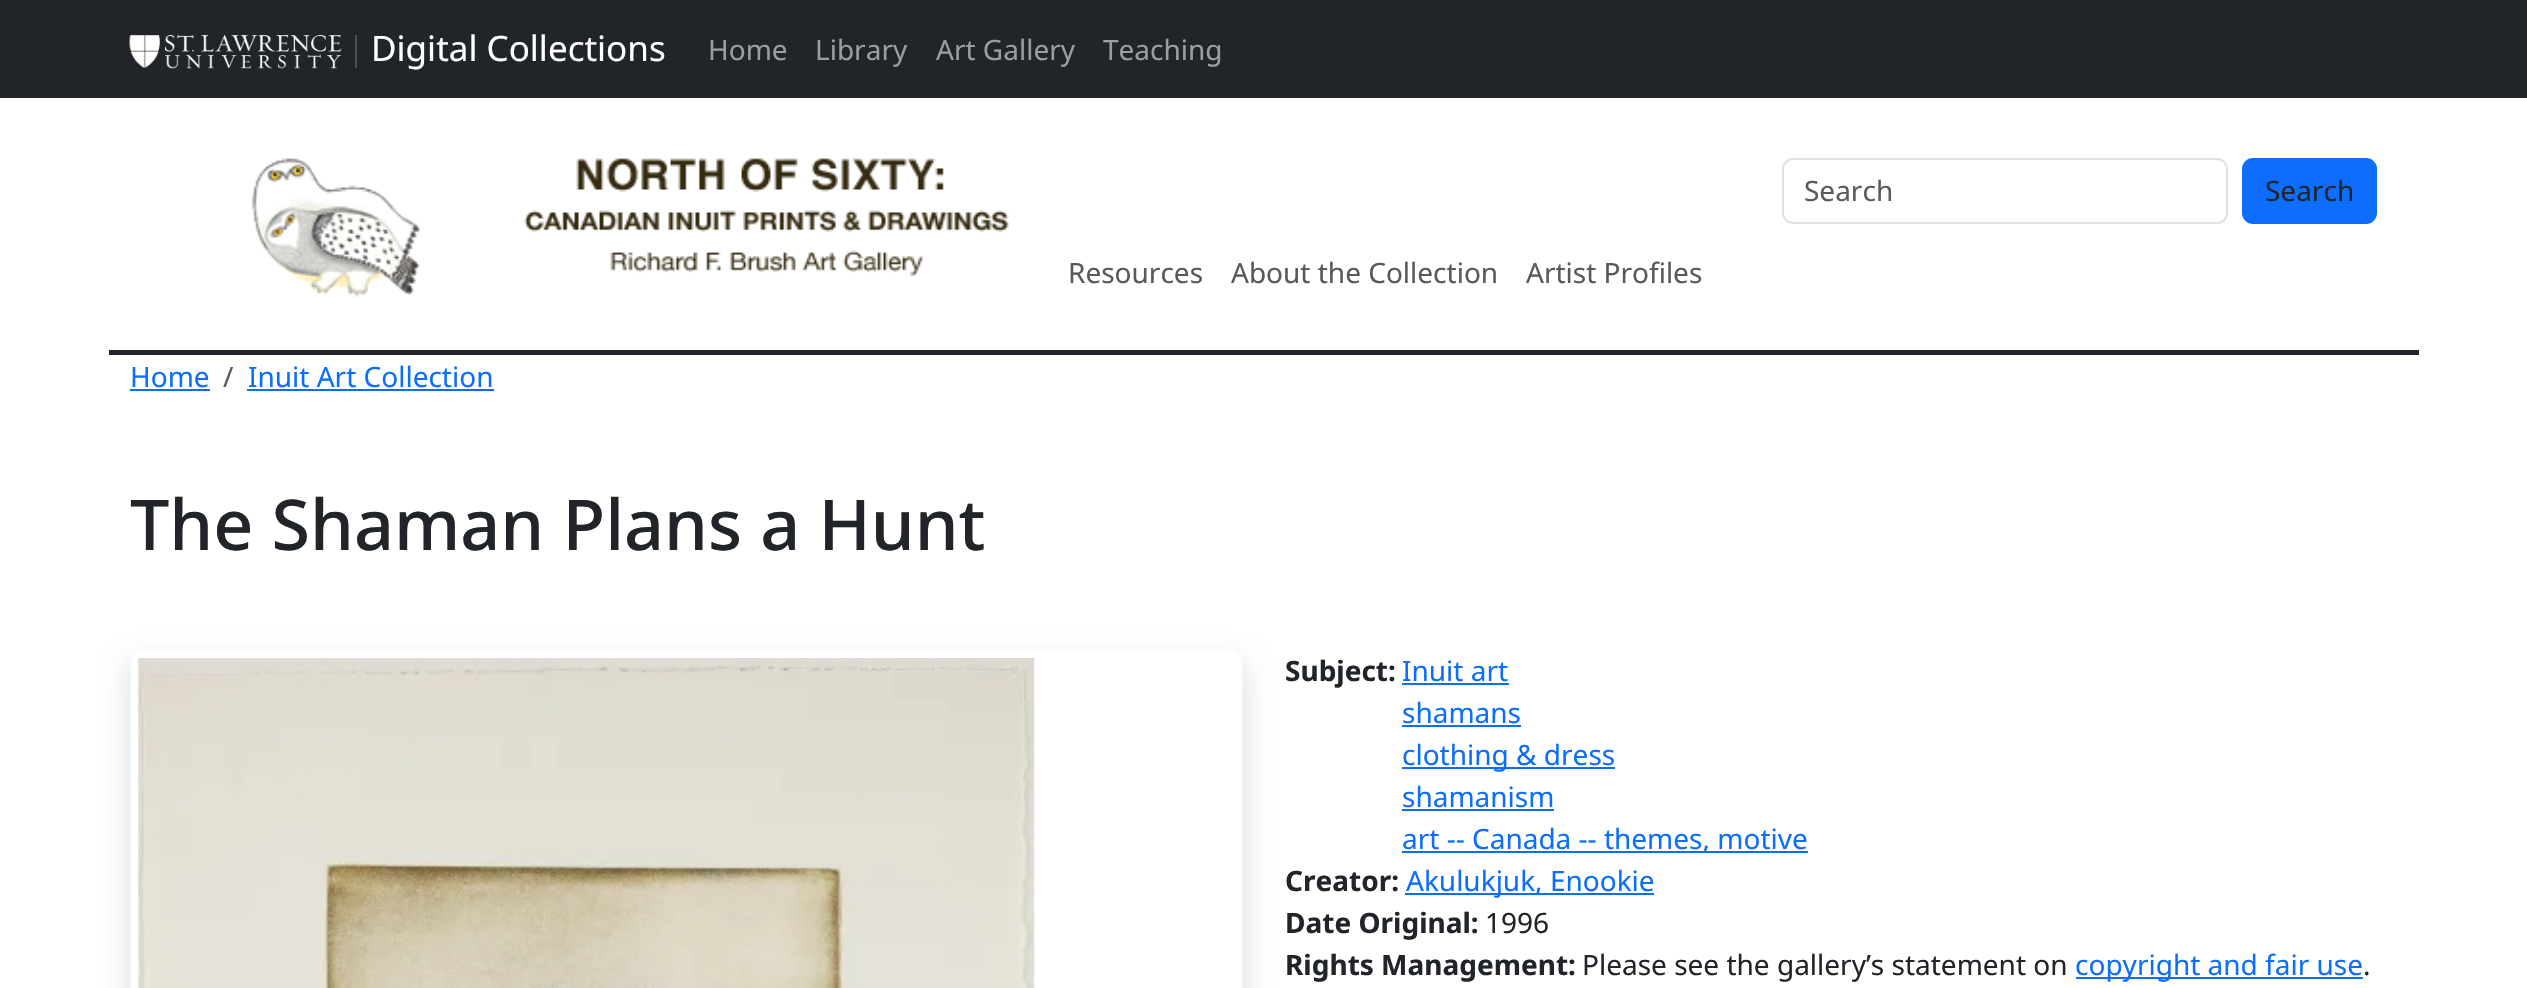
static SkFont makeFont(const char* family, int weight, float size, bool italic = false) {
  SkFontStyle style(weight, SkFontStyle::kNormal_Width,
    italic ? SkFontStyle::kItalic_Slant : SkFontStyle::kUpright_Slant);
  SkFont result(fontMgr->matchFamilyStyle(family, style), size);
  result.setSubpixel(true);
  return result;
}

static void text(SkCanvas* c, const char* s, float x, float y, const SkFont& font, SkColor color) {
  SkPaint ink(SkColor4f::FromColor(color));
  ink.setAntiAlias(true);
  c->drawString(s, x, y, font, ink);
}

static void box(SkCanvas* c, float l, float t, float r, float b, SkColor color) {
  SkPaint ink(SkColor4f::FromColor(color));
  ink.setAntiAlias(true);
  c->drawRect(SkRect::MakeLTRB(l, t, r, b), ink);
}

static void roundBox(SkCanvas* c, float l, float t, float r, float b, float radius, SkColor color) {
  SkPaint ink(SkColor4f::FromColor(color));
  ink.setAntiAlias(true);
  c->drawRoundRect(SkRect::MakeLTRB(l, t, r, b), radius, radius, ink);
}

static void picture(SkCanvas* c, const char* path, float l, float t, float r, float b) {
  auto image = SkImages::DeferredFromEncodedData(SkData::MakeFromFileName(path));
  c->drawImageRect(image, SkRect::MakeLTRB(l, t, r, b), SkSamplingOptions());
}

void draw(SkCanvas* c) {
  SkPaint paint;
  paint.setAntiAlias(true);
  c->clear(0xffffffff);
  box(c, 0, 0, 2527, 98, 0xff212529);
  picture(c, "img_01.png", 129, 35, 342, 69);
  box(c, 355, 35, 357, 68, 0xff495057);
  SkFont face1 = makeFont("Noto Sans", 400, 35);
  text(c, "Digital Collections", 371, 61, face1, 0xffffffff);
  SkFont face2 = makeFont("Noto Sans", 400, 28);
  text(c, "Home", 708, 60, face2, 0xff9b9d9f);
  text(c, "Library", 815, 60, face2, 0xff9b9d9f);
  text(c, "Art Gallery", 936, 60, face2, 0xff9b9d9f);
  text(c, "Teaching", 1103, 60, face2, 0xff9b9d9f);
  box(c, 109, 350, 2419, 355, 0xff212529);
  picture(c, "img_02.png", 251, 158, 1009, 297);
  paint.setStyle(SkPaint::kStroke_Style);
  paint.setStrokeWidth(2);
  paint.setColor(0xffdee2e6);
  c->drawRoundRect(SkRect::MakeLTRB(1783, 159, 2227, 223), 10, 10, paint);
  text(c, "Search", 1804, 201, face2, 0xff595c5f);
  roundBox(c, 2242, 158, 2377, 224, 11, 0xff0d6efd);
  text(c, "Search", 2265, 201, face2, 0xff212529);
  text(c, "Resources", 1068, 283, face2, 0xff595959);
  text(c, "About the Collection", 1231, 283, face2, 0xff595959);
  text(c, "Artist Profiles", 1526, 283, face2, 0xff595959);
  text(c, "Home", 130, 387, face2, 0xff0d6efd);
  box(c, 130, 389, 210, 391, 0xff0d6efd);
  text(c, "/", 223, 387, face2, 0xff595c5f);
  text(c, "Inuit Art Collection", 248, 387, face2, 0xff0d6efd);
  box(c, 247, 389, 494, 391, 0xff0d6efd);
  SkFont face3 = makeFont("Noto Sans", 500, 70);
  text(c, "The Shaman Plans a Hunt", 130, 550, face3, 0xff212529);
  c->save();
  c->clipPath(SkPathBuilder(SkPathFillType::kEvenOdd).moveTo(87, 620).lineTo(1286, 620).lineTo(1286, 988).lineTo(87, 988).close().moveTo(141, 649).lineTo(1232, 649).cubicTo(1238, 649, 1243, 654, 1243, 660).lineTo(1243, 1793).cubicTo(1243, 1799, 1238, 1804, 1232, 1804).lineTo(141, 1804).cubicTo(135, 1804, 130, 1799, 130, 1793).lineTo(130, 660).cubicTo(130, 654, 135, 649, 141, 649).close().detach(), true);
  paint.setStyle(SkPaint::kFill_Style);
  paint.setColor(0x26000000);
  paint.setMaskFilter(SkMaskFilter::MakeBlur(kNormal_SkBlurStyle, 14));
  c->drawRoundRect(SkRect::MakeLTRB(130, 663, 1243, 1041), 11, 11, paint);
  paint.setMaskFilter(nullptr);
  c->restore();
  paint.setStyle(SkPaint::kStroke_Style);
  paint.setColor(0xfff8f9fa);
  c->drawRoundRect(SkRect::MakeLTRB(131, 650, 1242, 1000), 10, 10, paint);
  picture(c, "img_03.png", 138, 658, 1035, 988);
  SkFont face4 = makeFont("Noto Sans", 700, 28);
  text(c, "Subject:", 1285, 681, face4, 0xff212529);
  text(c, "Inuit art", 1402, 681, face2, 0xff0d6efd);
  box(c, 1402, 683, 1509, 685, 0xff0d6efd);
  text(c, "shamans", 1402, 723, face2, 0xff0d6efd);
  box(c, 1402, 725, 1521, 727, 0xff0d6efd);
  box(c, 1402, 767, 1615, 769, 0xff0d6efd);
  text(c, "clothing & dress", 1402, 765, face2, 0xff0d6efd);
  text(c, "shamanism", 1402, 807, face2, 0xff0d6efd);
  box(c, 1402, 809, 1554, 811, 0xff0d6efd);
  box(c, 1402, 851, 1808, 853, 0xff0d6efd);
  text(c, "art -- Canada -- themes, motive", 1402, 849, face2, 0xff0d6efd);
  text(c, "Creator:", 1285, 891, face4, 0xff212529);
  box(c, 1405, 893, 1654, 895, 0xff0d6efd);
  text(c, "Akulukjuk, Enookie", 1406, 891, face2, 0xff0d6efd);
  text(c, "Date Original:", 1285, 933, face4, 0xff212529);
  text(c, "1996", 1485, 933, face2, 0xff212529);
  text(c, "Rights Management:", 1285, 975, face4, 0xff212529);
  text(c, "Please see the gallery’s statement on", 1582, 975, face2, 0xff212529);
  box(c, 2076, 977, 2363, 979, 0xff0d6efd);
  text(c, "copyright and fair use", 2075, 975, face2, 0xff0d6efd);
  text(c, ".", 2363, 975, face2, 0xff212529);
}
